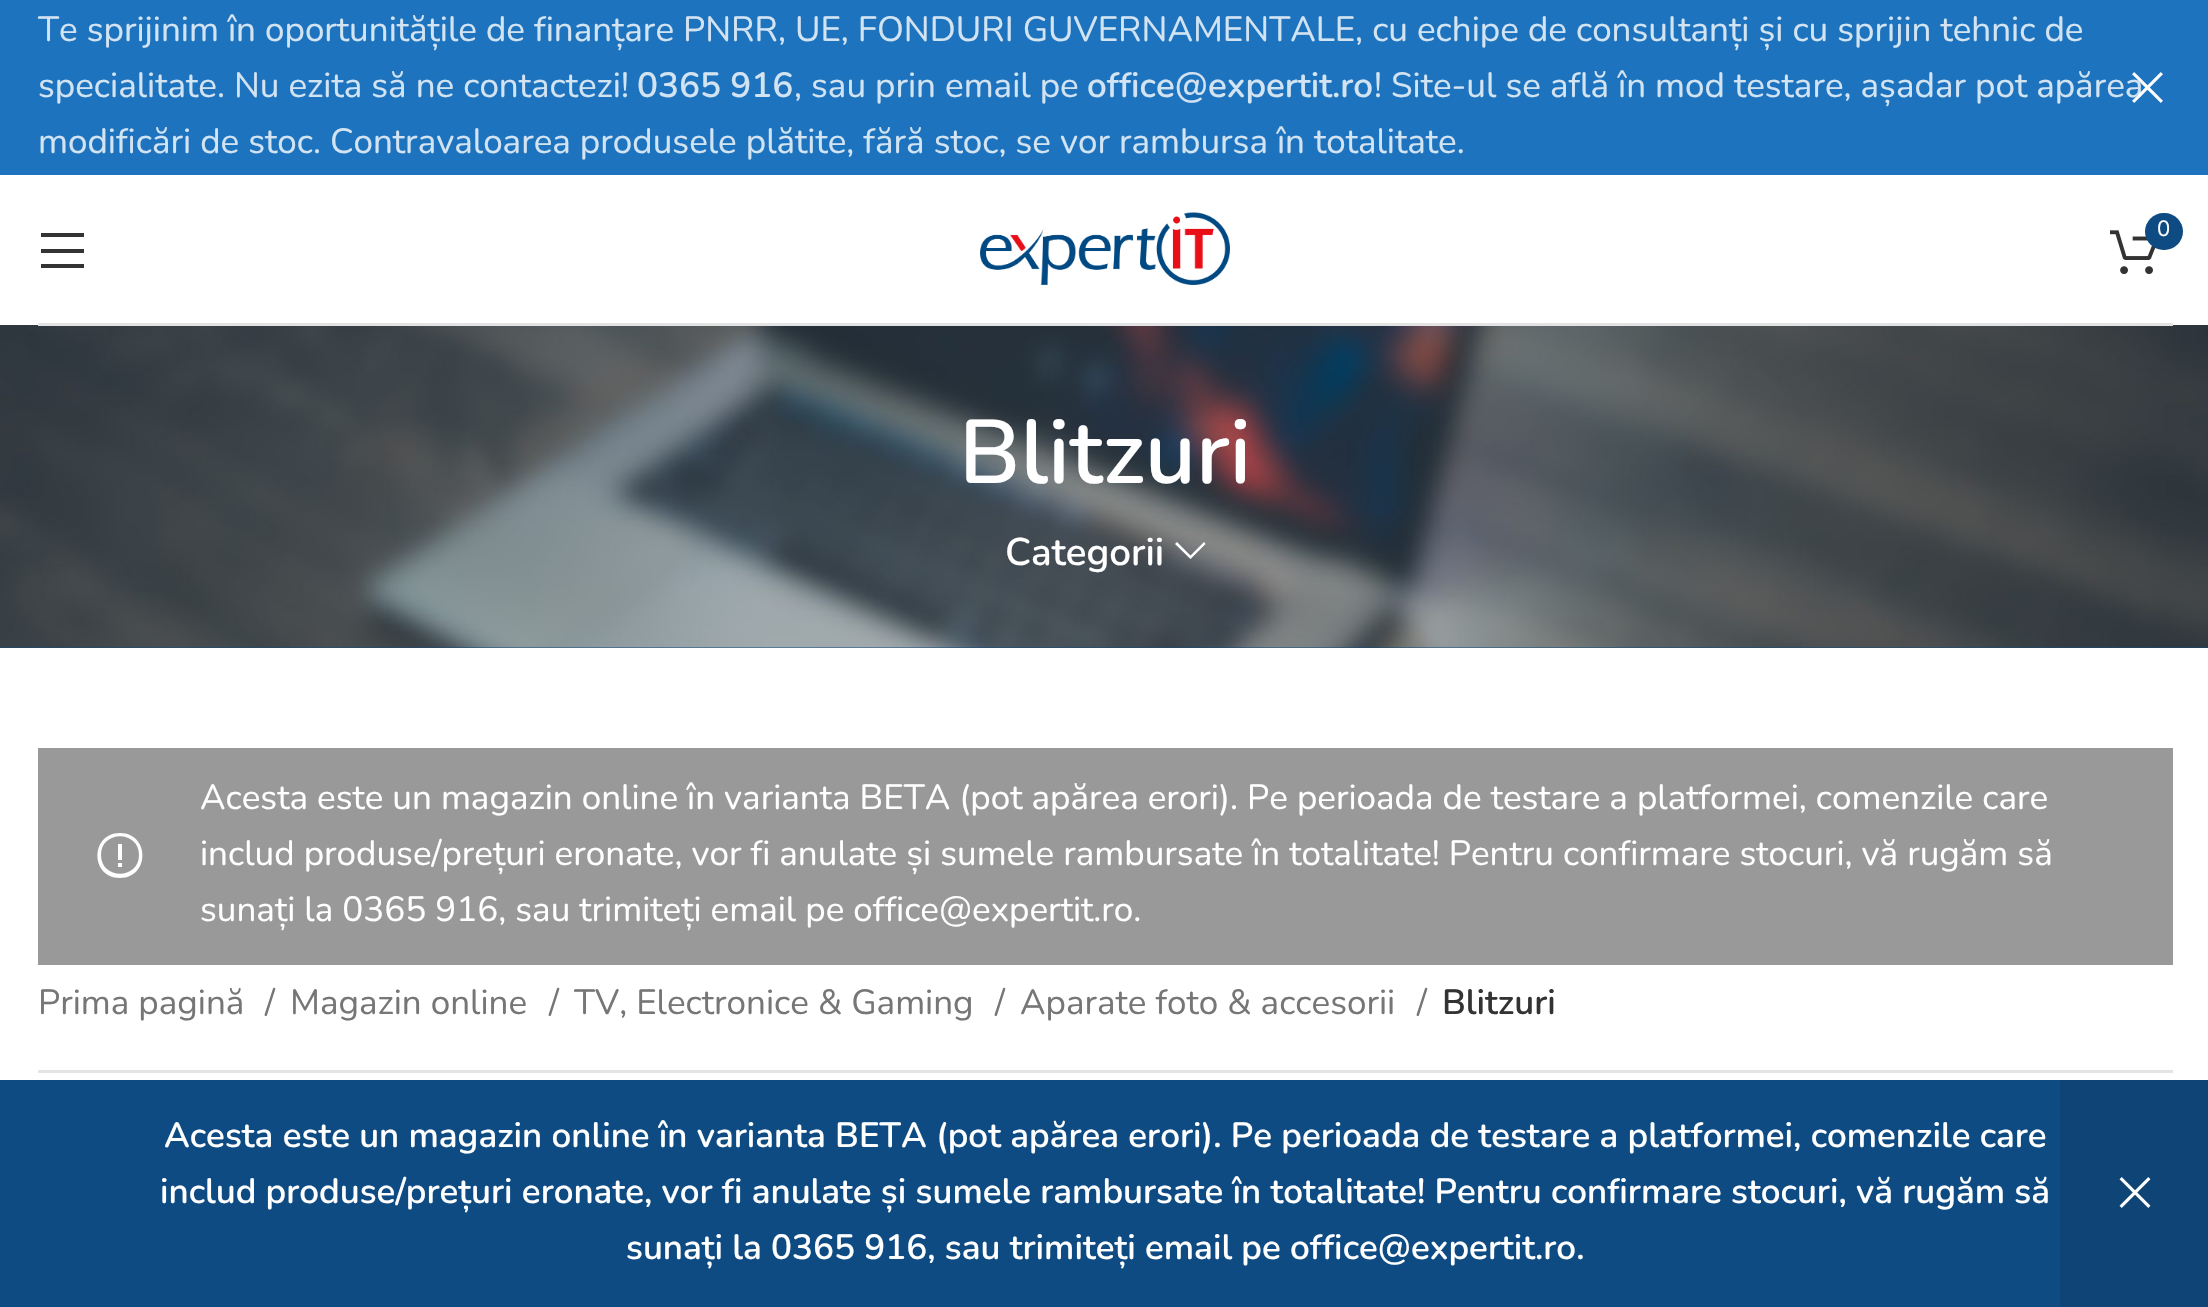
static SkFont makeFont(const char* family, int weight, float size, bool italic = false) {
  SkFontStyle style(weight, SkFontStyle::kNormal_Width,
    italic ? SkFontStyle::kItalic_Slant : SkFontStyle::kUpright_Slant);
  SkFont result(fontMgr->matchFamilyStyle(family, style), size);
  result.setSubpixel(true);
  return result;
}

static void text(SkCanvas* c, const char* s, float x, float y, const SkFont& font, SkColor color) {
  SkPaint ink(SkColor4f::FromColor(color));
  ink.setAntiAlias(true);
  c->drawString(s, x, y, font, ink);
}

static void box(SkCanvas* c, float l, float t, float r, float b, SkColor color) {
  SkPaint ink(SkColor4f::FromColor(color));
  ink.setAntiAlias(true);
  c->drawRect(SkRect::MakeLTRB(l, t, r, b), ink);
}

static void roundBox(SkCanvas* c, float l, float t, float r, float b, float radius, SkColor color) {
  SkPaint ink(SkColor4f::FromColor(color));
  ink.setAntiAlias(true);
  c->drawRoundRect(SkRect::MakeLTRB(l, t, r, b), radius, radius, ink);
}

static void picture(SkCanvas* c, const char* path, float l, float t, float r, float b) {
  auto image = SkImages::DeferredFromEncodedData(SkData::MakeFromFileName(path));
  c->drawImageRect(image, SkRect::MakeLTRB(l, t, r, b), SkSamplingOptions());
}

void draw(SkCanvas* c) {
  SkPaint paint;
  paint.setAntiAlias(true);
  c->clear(0xffffffff);
  box(c, 0, 0, 2208, 175, 0xff1e73be);
  SkFont face1 = makeFont("Nunito", 400, 35);
  text(c, "Te sprijinim în oportunitățile de finanțare PNRR, UE, FONDURI GUVERNAMENTALE, cu echipe de consultanți și cu sprijin tehnic de", 38, 41, face1, 0xffd2e3f2);
  text(c, "specialitate. Nu ezita să ne contactezi!", 38, 97, face1, 0xffd2e3f2);
  SkFont face2 = makeFont("Nunito", 600, 35);
  text(c, "0365 916", 637, 97, face2, 0xffd2e3f2);
  text(c, ", sau prin email pe", 794, 97, face1, 0xffd2e3f2);
  text(c, "office@expertit.ro", 1087, 97, face2, 0xffd2e3f2);
  text(c, "! Site-ul se află în mod testare, așadar pot apărea", 1374, 97, face1, 0xffd2e3f2);
  text(c, "modificări de stoc. Contravaloarea produsele plătite, fără stoc, se vor rambursa în totalitate.", 38, 153, face1, 0xffd2e3f2);
  picture(c, "img_01.png", 2132, 72, 2163, 103);
  box(c, 0, 647, 2208, 648, 0xff0f4b83);
  picture(c, "img_04.png", 0, 325, 2208, 648);
  box(c, 38, 323, 2173, 326, 0xffe3e3e3);
  picture(c, "img_02.png", 980, 212, 1230, 285);
  picture(c, "img_03.png", 2110, 230, 2156, 275);
  roundBox(c, 2145, 213, 2183, 250, 18.5f, 0xff0f4b83);
  SkFont face3 = makeFont("Nunito", 400, 22);
  text(c, "0", 2157, 236, face3, 0xffffffff);
  paint.setColor(0xff333333);
  c->drawPath(SkPathBuilder().moveTo(41, 237).lineTo(84, 237).lineTo(84, 233).lineTo(41, 233).close().moveTo(41, 253).lineTo(84, 253).lineTo(84, 249).lineTo(41, 249).close().moveTo(41, 268).lineTo(84, 268).lineTo(84, 264).lineTo(41, 264).close().detach(), paint);
  SkFont face4 = makeFont("Nunito", 600, 90);
  text(c, "Blitzuri", 959, 483, face4, 0xffffffff);
  SkFont face5 = makeFont("Nunito", 600, 38.5f);
  text(c, "Categorii", 1005, 565, face5, 0xffffffff);
  paint.setColor(0xffffffff);
  c->drawPath(SkPathBuilder().moveTo(1204, 542).lineTo(1190.5f, 555.5f).lineTo(1177, 542).lineTo(1175, 544).lineTo(1190.5f, 559).lineTo(1205.5f, 544).close().detach(), paint);
  box(c, 38, 748, 2173, 965, 0xff999999);
  c->drawPath(SkPathBuilder().moveTo(118, 844).lineTo(118, 860).lineTo(122, 860).lineTo(122, 844).close().moveTo(118, 863).lineTo(118, 867).lineTo(122, 867).lineTo(122, 863).close().moveTo(120, 833).cubicTo(90, 833, 90, 878, 120, 878).cubicTo(150, 878, 150, 833, 120, 833).close().moveTo(101, 855).cubicTo(101, 830, 139, 830, 139, 855).cubicTo(139, 880, 101, 880, 101, 855).close().detach(), paint);
  text(c, "Acesta este un magazin online în varianta BETA (pot apărea erori). Pe perioada de testare a platformei, comenzile care", 200, 809, face1, 0xffffffff);
  text(c, "includ produse/prețuri eronate, vor fi anulate și sumele rambursate în totalitate! Pentru confirmare stocuri, vă rugăm să", 200, 865, face1, 0xffffffff);
  text(c, "sunați la 0365 916, sau trimiteți email pe office@expertit.ro.", 200, 921, face1, 0xffffffff);
  box(c, 38, 1070, 2173, 1073, 0xffe4e4e4);
  text(c, "Prima pagină", 38, 1014, face1, 0xff767676);
  text(c, "/", 265, 1014, face1, 0xff767676);
  text(c, "Magazin online", 290, 1014, face1, 0xff767676);
  text(c, "/", 549, 1014, face1, 0xff767676);
  text(c, "TV, Electronice & Gaming", 574, 1014, face1, 0xff767676);
  text(c, "/", 995, 1014, face1, 0xff767676);
  text(c, "Aparate foto & accesorii", 1020, 1014, face1, 0xff767676);
  text(c, "/", 1417, 1014, face1, 0xff767676);
  text(c, "Blitzuri", 1442, 1014, face2, 0xff333333);
  box(c, 0, 1080, 2060, 1307, 0xff0f4b83);
  text(c, "Acesta este un magazin online în varianta BETA (pot apărea erori). Pe perioada de testare a platformei, comenzile care", 164, 1147, face2, 0xffffffff);
  box(c, 2060, 1080, 2208, 1307, 0xff0e4476);
  picture(c, "img_05.png", 2119, 1177, 2151, 1208);
  text(c, "includ produse/prețuri eronate, vor fi anulate și sumele rambursate în totalitate! Pentru confirmare stocuri, vă rugăm să", 160, 1203, face2, 0xffffffff);
  text(c, "sunați la 0365 916, sau trimiteți email pe office@expertit.ro.", 626, 1259, face2, 0xffffffff);
}
